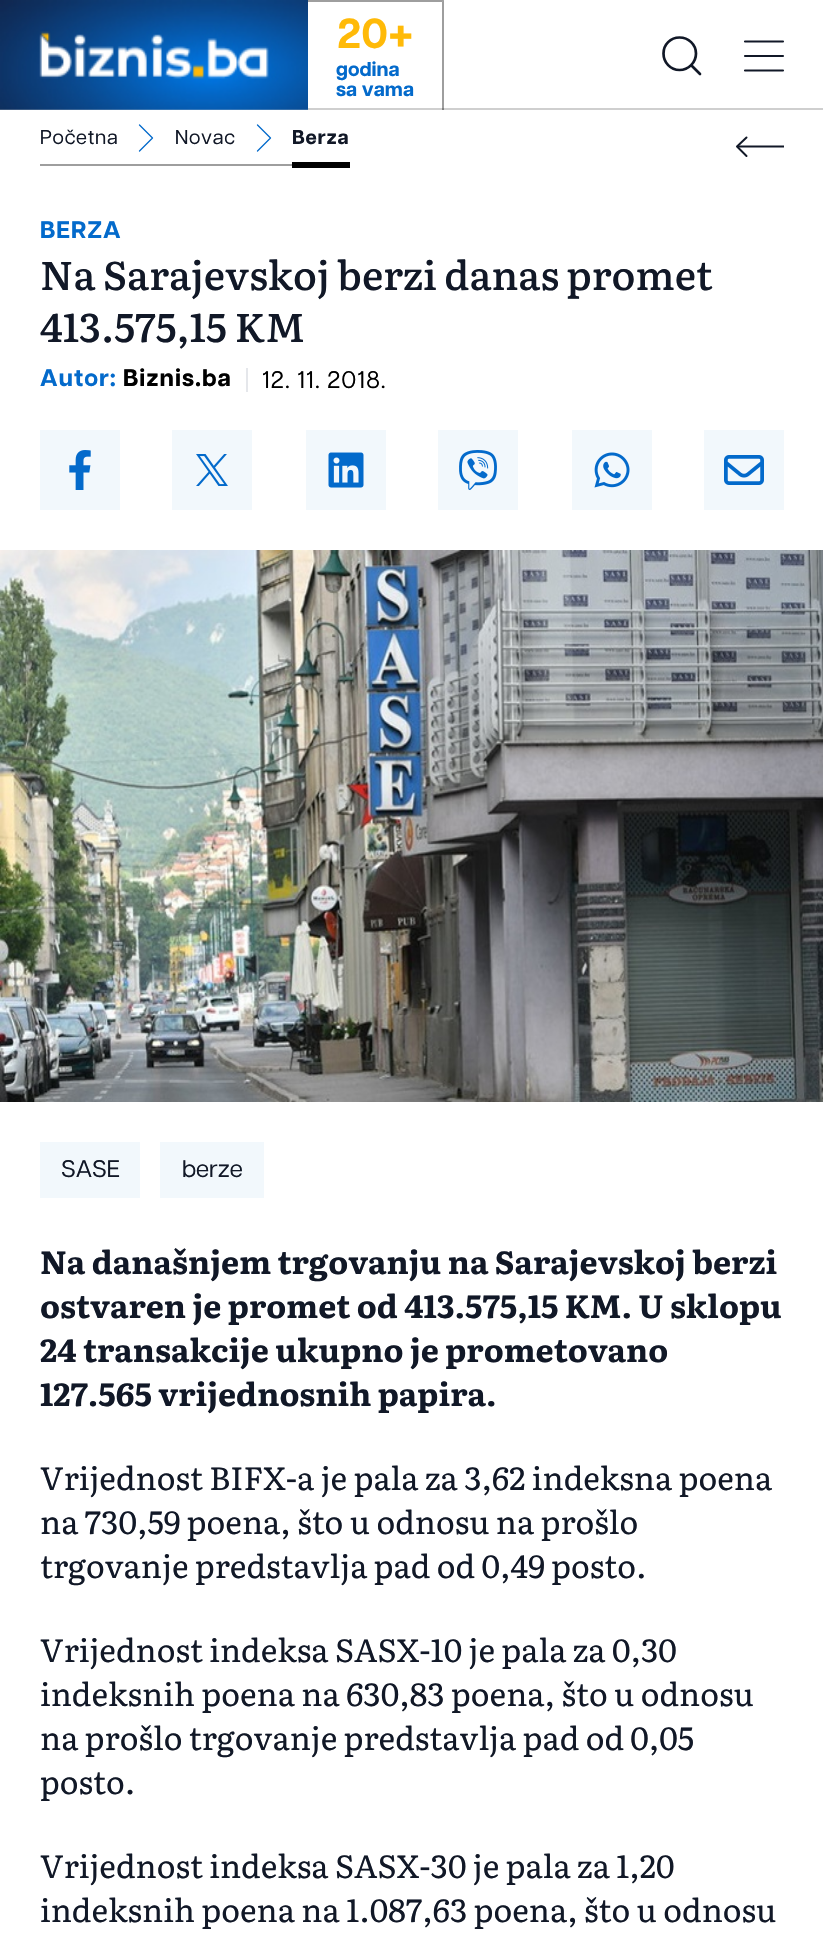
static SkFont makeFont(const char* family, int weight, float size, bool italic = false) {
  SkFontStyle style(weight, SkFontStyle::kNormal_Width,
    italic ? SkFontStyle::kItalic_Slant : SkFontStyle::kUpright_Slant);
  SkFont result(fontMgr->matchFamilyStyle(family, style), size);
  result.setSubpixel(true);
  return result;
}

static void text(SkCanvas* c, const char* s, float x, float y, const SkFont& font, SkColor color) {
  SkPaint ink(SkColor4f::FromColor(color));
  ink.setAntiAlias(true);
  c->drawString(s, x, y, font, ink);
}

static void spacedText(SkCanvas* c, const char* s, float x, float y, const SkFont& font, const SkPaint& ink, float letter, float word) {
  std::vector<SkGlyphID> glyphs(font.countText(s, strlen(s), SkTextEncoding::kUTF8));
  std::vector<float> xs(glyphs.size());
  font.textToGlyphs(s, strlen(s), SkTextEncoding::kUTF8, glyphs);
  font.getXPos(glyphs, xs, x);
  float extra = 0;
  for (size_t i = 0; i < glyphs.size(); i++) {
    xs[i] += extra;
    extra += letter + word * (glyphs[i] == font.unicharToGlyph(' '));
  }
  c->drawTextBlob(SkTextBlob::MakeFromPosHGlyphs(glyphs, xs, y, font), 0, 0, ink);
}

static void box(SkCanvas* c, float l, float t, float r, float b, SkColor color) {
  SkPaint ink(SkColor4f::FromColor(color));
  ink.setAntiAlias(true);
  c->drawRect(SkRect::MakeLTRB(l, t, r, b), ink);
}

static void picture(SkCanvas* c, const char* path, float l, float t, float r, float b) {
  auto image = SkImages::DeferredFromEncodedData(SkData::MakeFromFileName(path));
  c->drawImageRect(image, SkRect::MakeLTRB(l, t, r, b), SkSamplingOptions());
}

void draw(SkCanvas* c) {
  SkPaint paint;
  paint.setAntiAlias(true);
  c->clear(0xffffffff);
  box(c, 0, 108, 823, 110, 0xffcfcfcf);
  picture(c, "img_01.png", 0, 0, 308, 110);
  paint.setColor(0xff9e9e9e);
  c->drawPath(SkPathBuilder().moveTo(308, 0).lineTo(444, 0).lineTo(442, 2).lineTo(308, 2).close().detach(), paint);
  paint.setColor(0x61000000);
  c->drawPath(SkPathBuilder().moveTo(444, 0).lineTo(444, 110).lineTo(442, 110).lineTo(442, 2).close().detach(), paint);
  SkFont face1 = makeFont("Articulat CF", 700, 42);
  text(c, "20+", 337, 48, face1, 0xffffba08);
  SkFont face2 = makeFont("Articulat CF", 700, 20);
  text(c, "godina", 336, 76, face2, 0xff036acb);
  text(c, "sa vama", 336, 96, face2, 0xff036acb);
  paint.setStyle(SkPaint::kStroke_Style);
  paint.setStrokeWidth(2.7f);
  paint.setStrokeCap(SkPaint::kRound_Cap);
  paint.setStrokeJoin(SkPaint::kRound_Join);
  paint.setColor(0xff111827);
  c->drawPath(SkPathBuilder().moveTo(692, 66).lineTo(700, 74).moveTo(663.5f, 53.5f).cubicTo(663.5f, 62.5f, 670.5f, 70, 679.5f, 70).cubicTo(688.5f, 70, 696, 62.5f, 696, 53.5f).cubicTo(696, 44.5f, 688.5f, 37.5f, 679.5f, 37.5f).cubicTo(670.5f, 37.5f, 663.5f, 44.5f, 663.5f, 53.5f).close().detach(), paint);
  paint.setStrokeWidth(2.1f);
  c->drawPath(SkPathBuilder().moveTo(745, 41.5f).lineTo(783, 41.5f).moveTo(745, 56).lineTo(783, 56).moveTo(745, 70.5f).lineTo(783, 70.5f).detach(), paint);
  box(c, 40, 164, 292, 166, 0xff9e9e9e);
  SkFont face3 = makeFont("Articulat CF", 400, 20);
  paint.setStyle(SkPaint::kFill_Style);
  spacedText(c, "Početna", 40, 144, face3, paint, 0.75f, 0);
  paint.setStyle(SkPaint::kStroke_Style);
  paint.setStrokeWidth(1.3f);
  paint.setColor(0xff036acb);
  c->drawPath(SkPathBuilder().moveTo(139.5f, 125).lineTo(152.5f, 138).lineTo(139.5f, 151).detach(), paint);
  paint.setStyle(SkPaint::kFill_Style);
  paint.setColor(0xff111827);
  spacedText(c, "Novac", 175, 144, face3, paint, 0.75f, 0);
  paint.setStyle(SkPaint::kStroke_Style);
  paint.setColor(0xff036acb);
  c->drawPath(SkPathBuilder().moveTo(257.5f, 125).lineTo(270.5f, 138).lineTo(257.5f, 151).detach(), paint);
  box(c, 292, 162, 350, 168, 0xff000000);
  paint.setStyle(SkPaint::kFill_Style);
  paint.setColor(0xff111827);
  spacedText(c, "Berza", 292, 144, face2, paint, 0.75f, 0);
  paint.setStyle(SkPaint::kStroke_Style);
  paint.setStrokeWidth(2);
  c->drawPath(SkPathBuilder().moveTo(746.5f, 137.5f).lineTo(737, 146.5f).lineTo(746.5f, 156).detach(), paint);
  paint.setStrokeCap(SkPaint::kButt_Cap);
  paint.setStrokeJoin(SkPaint::kMiter_Join);
  c->drawPath(SkPathBuilder().moveTo(737, 146.5f).lineTo(784, 146.5f).detach(), paint);
  SkFont face4 = makeFont("Articulat CF", 700, 24);
  paint.setStyle(SkPaint::kFill_Style);
  paint.setColor(0xff036acb);
  spacedText(c, "BERZA", 40, 238, face4, paint, 1, 0);
  SkFont face5 = makeFont("Literata", 500, 40);
  paint.setColor(0xff111827);
  spacedText(c, "Na Sarajevskoj berzi danas promet", 40, 290, face5, paint, 0, -0.5f);
  text(c, "413.575,15 KM", 40, 342, face5, 0xff111827);
  paint.setColor(0xff036acb);
  spacedText(c, "Autor:", 40, 386, face4, paint, 1, 0);
  paint.setColor(0xff000000);
  spacedText(c, "Biznis.ba", 123, 386, face4, paint, 1, 0);
  box(c, 246, 368, 248, 392, 0xffe5e7eb);
  SkFont face6 = makeFont("Articulat CF", 400, 24);
  spacedText(c, "12. 11. 2018.", 262, 388, face6, paint, 1, 0);
  box(c, 40, 430, 120, 510, 0xfff2f8fc);
  picture(c, "img_02.png", 69, 450, 91, 490);
  box(c, 172, 430, 252, 510, 0xfff2f8fc);
  picture(c, "img_03.png", 196, 454, 228, 486);
  box(c, 306, 430, 386, 510, 0xfff2f8fc);
  picture(c, "img_04.png", 328, 452, 364, 488);
  box(c, 438, 430, 518, 510, 0xfff2f8fc);
  picture(c, "img_05.png", 459, 450, 497, 490);
  box(c, 572, 430, 652, 510, 0xfff2f8fc);
  picture(c, "img_06.png", 594, 452, 630, 488);
  box(c, 704, 430, 784, 510, 0xfff2f8fc);
  picture(c, "img_07.png", 724, 455, 764, 485);
  picture(c, "img_08.png", 0, 550, 823, 1102);
  box(c, 40, 1142, 140, 1198, 0xfff2f8fc);
  text(c, "SASE", 61, 1177, face6, 0xff111827);
  box(c, 160, 1142, 264, 1198, 0xfff2f8fc);
  text(c, "berze", 182, 1177, face6, 0xff111827);
  SkFont face7 = makeFont("Literata", 700, 32);
  text(c, "Na današnjem trgovanju na Sarajevskoj berzi", 40, 1274, face7, 0xff111827);
  text(c, "ostvaren je promet od 413.575,15 KM. U sklopu", 40, 1318, face7, 0xff111827);
  text(c, "24 transakcije ukupno je prometovano", 40, 1362, face7, 0xff111827);
  text(c, "127.565 vrijednosnih papira.", 40, 1406, face7, 0xff111827);
  SkFont face8 = makeFont("Literata", 400, 32);
  text(c, "Vrijednost BIFX-a je pala za 3,62 indeksna poena", 40, 1490, face8, 0xff111827);
  text(c, "na 730,59 poena, što u odnosu na prošlo", 40, 1534, face8, 0xff111827);
  text(c, "trgovanje predstavlja pad od 0,49 posto.", 40, 1578, face8, 0xff111827);
  text(c, "Vrijednost indeksa SASX-10 je pala za 0,30", 40, 1662, face8, 0xff111827);
  text(c, "indeksnih poena na 630,83 poena, što u odnosu", 40, 1706, face8, 0xff111827);
  text(c, "na prošlo trgovanje predstavlja pad od 0,05", 40, 1750, face8, 0xff111827);
  text(c, "posto.", 40, 1794, face8, 0xff111827);
  text(c, "Vrijednost indeksa SASX-30 je pala za 1,20", 40, 1878, face8, 0xff111827);
  text(c, "indeksnih poena na 1.087,63 poena, što u odnosu", 40, 1922, face8, 0xff111827);
}
